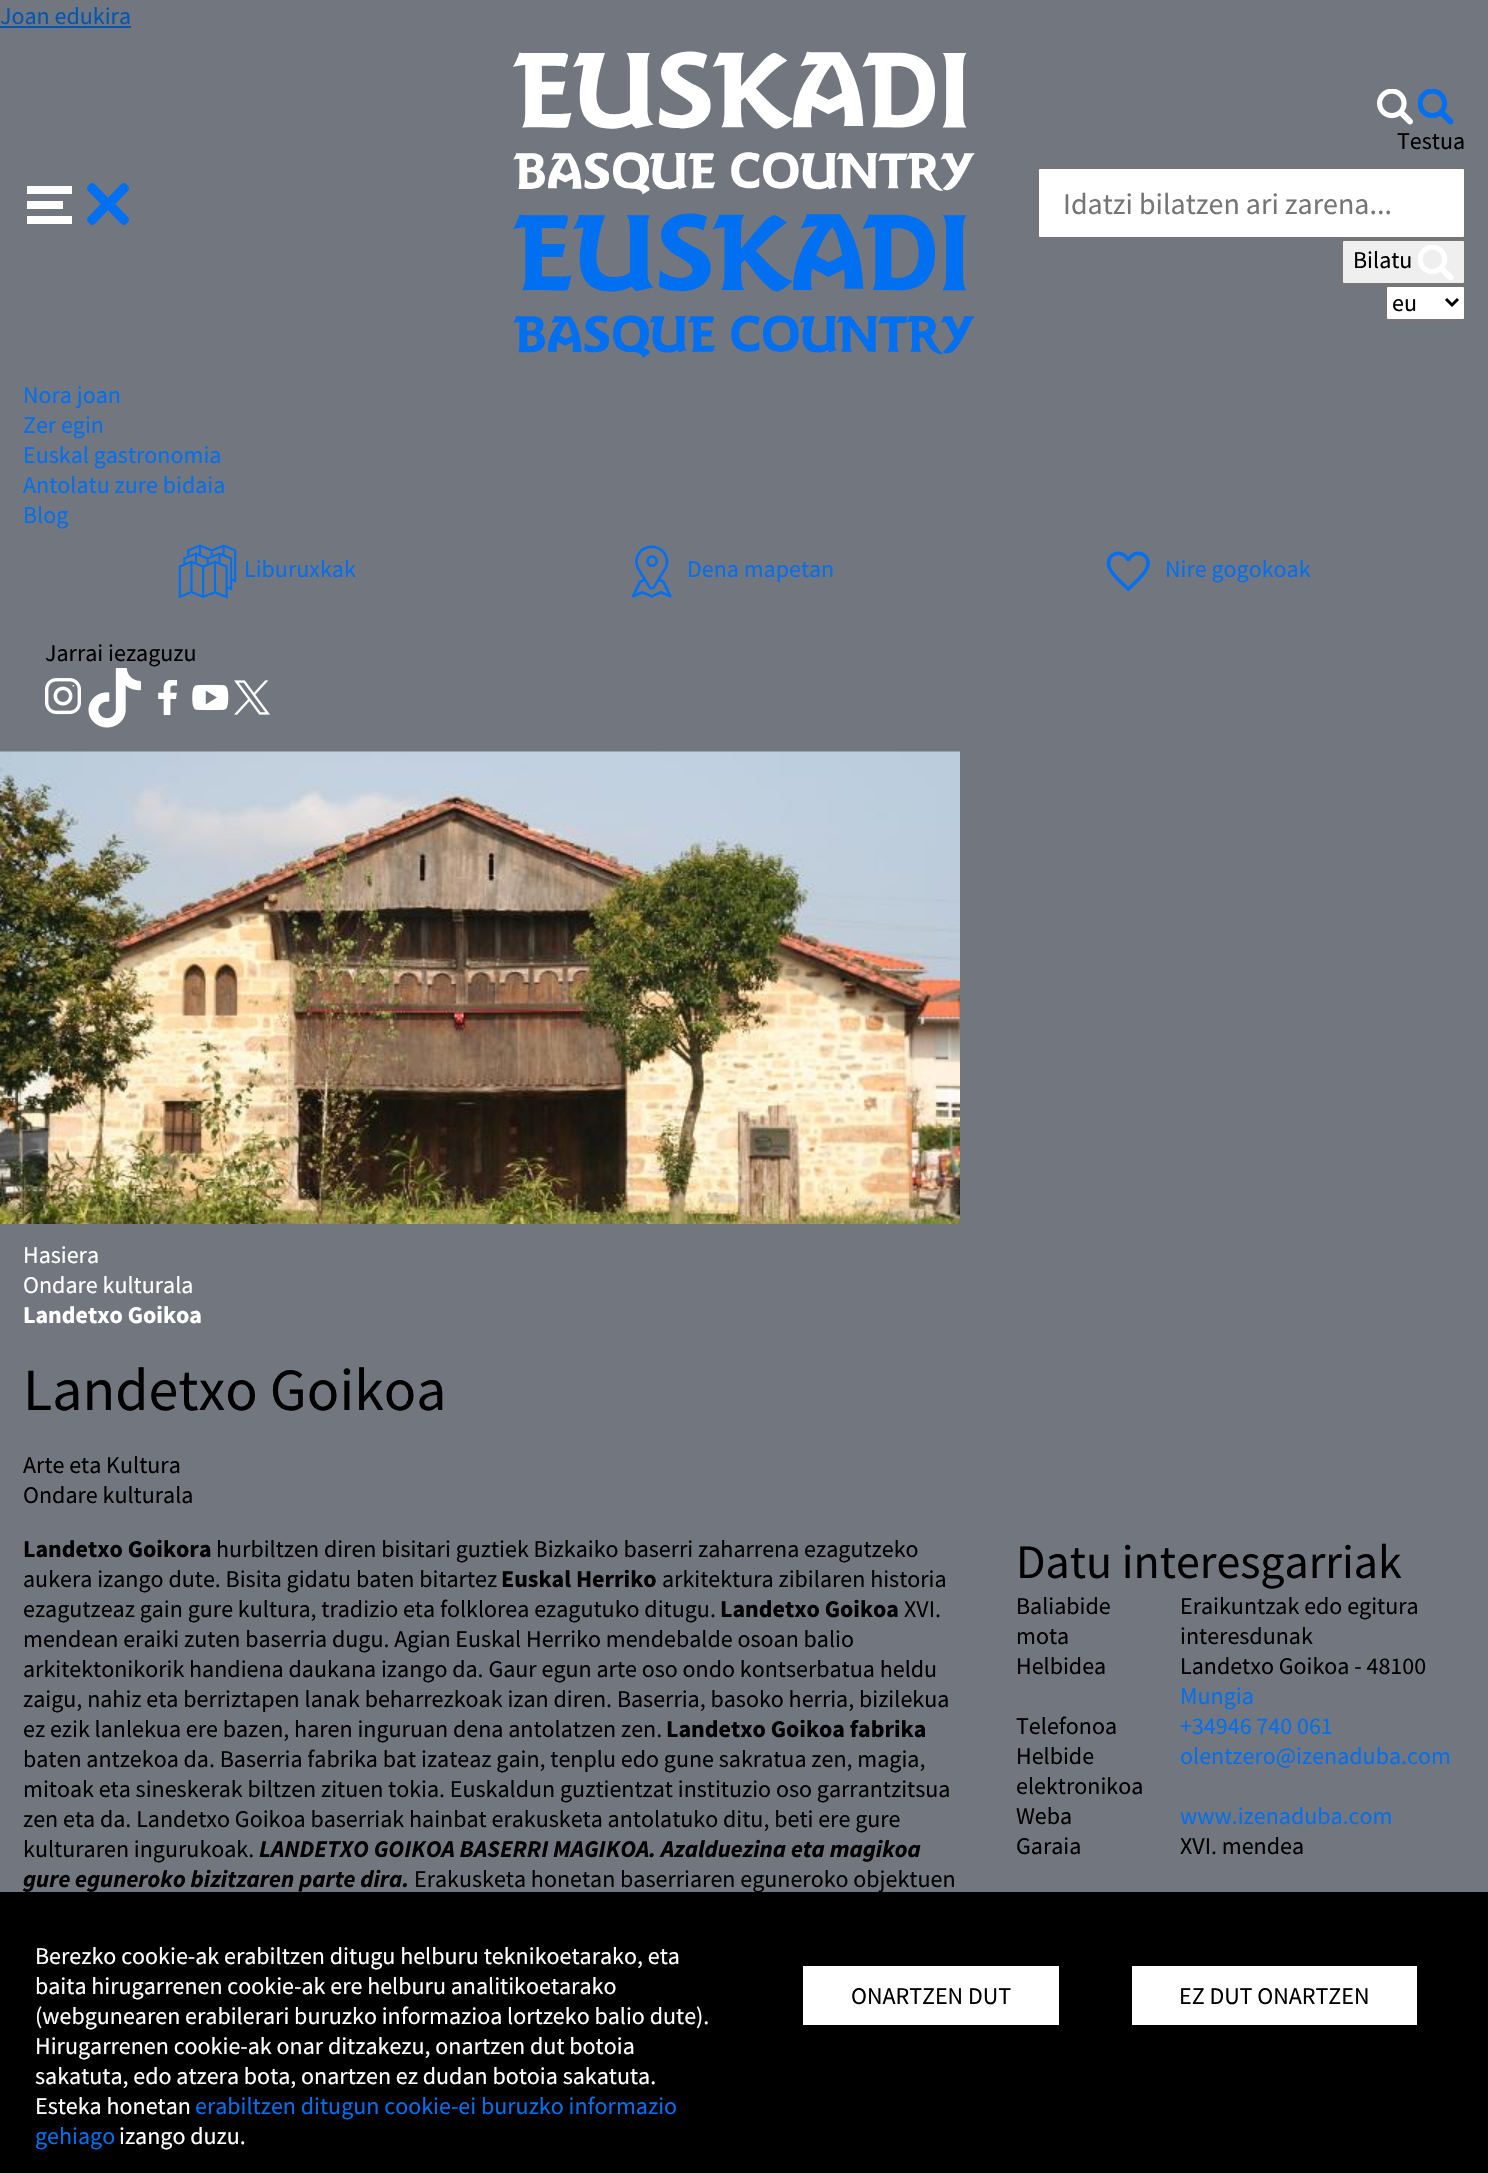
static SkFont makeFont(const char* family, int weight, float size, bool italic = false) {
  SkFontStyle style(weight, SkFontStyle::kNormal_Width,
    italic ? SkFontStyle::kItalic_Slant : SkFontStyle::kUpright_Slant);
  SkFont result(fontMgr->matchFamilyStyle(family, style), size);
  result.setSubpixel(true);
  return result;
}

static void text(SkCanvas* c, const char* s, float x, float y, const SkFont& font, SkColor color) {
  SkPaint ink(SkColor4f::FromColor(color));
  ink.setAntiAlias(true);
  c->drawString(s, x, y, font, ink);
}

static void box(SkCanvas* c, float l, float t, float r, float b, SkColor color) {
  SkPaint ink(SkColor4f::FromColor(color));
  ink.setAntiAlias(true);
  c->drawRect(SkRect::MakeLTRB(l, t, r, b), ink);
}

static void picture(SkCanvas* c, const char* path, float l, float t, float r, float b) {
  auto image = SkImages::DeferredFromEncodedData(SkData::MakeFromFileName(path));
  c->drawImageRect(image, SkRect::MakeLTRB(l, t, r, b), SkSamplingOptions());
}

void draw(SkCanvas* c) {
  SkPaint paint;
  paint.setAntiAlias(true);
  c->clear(0xff72767e);
  SkFont face1 = makeFont("Source Sans Pro", 400, 24);
  text(c, "Joan edukira", 0, 24, face1, 0xff0056b3);
  box(c, 0, 26, 131, 28, 0xff0056b3);
  box(c, 27, 186, 72, 194, 0xffffffff);
  picture(c, "img_01.png", 87, 183, 129, 225);
  box(c, 27, 201, 63, 209, 0xffffffff);
  box(c, 27, 216, 72, 224, 0xffffffff);
  picture(c, "img_02.png", 513, 51, 975, 195);
  picture(c, "img_03.png", 513, 213, 975, 358);
  picture(c, "img_04.png", 1377, 89, 1413, 125);
  picture(c, "img_05.png", 1418, 89, 1454, 125);
  text(c, "Testua", 1397, 149, face1, 0xff000000);
  paint.setColor(0xffffffff);
  c->drawRoundRect(SkRect::MakeLTRB(1038, 168, 1465, 238), 2, 2, paint);
  paint.setStyle(SkPaint::kStroke_Style);
  paint.setStrokeWidth(2);
  paint.setColor(0xff767676);
  c->drawRoundRect(SkRect::MakeLTRB(1038, 168, 1465, 238), 2, 2, paint);
  SkFont face2 = makeFont("Source Sans Pro", 400, 30);
  text(c, "Idatzi bilatzen ari zarena...", 1063, 214, face2, 0xff757575);
  paint.setStyle(SkPaint::kFill_Style);
  paint.setColor(0xffefefef);
  c->drawRoundRect(SkRect::MakeLTRB(1342, 240, 1465, 284), 2, 2, paint);
  paint.setStyle(SkPaint::kStroke_Style);
  paint.setColor(0xff767676);
  c->drawRoundRect(SkRect::MakeLTRB(1342, 240, 1465, 284), 2, 2, paint);
  text(c, "Bilatu", 1353, 268, face1, 0xff000000);
  picture(c, "img_06.png", 1418, 245, 1454, 281);
  paint.setStyle(SkPaint::kFill_Style);
  paint.setColor(0xffffffff);
  c->drawRoundRect(SkRect::MakeLTRB(1386, 286, 1465, 320), 2, 2, paint);
  paint.setStyle(SkPaint::kStroke_Style);
  paint.setColor(0xff767676);
  c->drawRoundRect(SkRect::MakeLTRB(1386, 286, 1465, 320), 2, 2, paint);
  paint.setStrokeWidth(3);
  paint.setColor(0xff000000);
  c->drawPath(SkPathBuilder().moveTo(1446, 299).lineTo(1452, 305).lineTo(1458, 299).detach(), paint);
  text(c, "eu", 1392, 311, face1, 0xff000000);
  text(c, "Nora joan", 23, 403, face1, 0xff006ff0);
  text(c, "Zer egin", 23, 433, face1, 0xff006ff0);
  text(c, "Euskal gastronomia", 23, 463, face1, 0xff006ff0);
  text(c, "Antolatu zure bidaia", 23, 493, face1, 0xff006ff0);
  text(c, "Blog", 23, 523, face1, 0xff006ff0);
  picture(c, "img_07.png", 178, 544, 237, 599);
  text(c, "Liburuxkak", 244, 577, face1, 0xff006ff0);
  picture(c, "img_08.png", 632, 545, 672, 598);
  text(c, "Dena mapetan", 687, 577, face1, 0xff006ff0);
  picture(c, "img_09.png", 1106, 551, 1150, 592);
  text(c, "Nire gogokoak", 1165, 577, face1, 0xff006ff0);
  text(c, "Jarrai iezaguzu", 45, 661, face1, 0xff000000);
  picture(c, "img_10.png", 45, 678, 81, 715);
  picture(c, "img_11.png", 88, 668, 141, 728);
  picture(c, "img_12.png", 158, 680, 177, 716);
  picture(c, "img_13.png", 192, 684, 229, 711);
  picture(c, "img_14.png", 234, 680, 270, 715);
  picture(c, "img_15.png", 0, 751, 960, 1224);
  text(c, "Hasiera", 23, 1263, face1, 0xffffffff);
  text(c, "Ondare kulturala", 23, 1293, face1, 0xffffffff);
  SkFont face3 = makeFont("Source Sans Pro", 700, 24);
  text(c, "Landetxo Goikoa", 23, 1323, face3, 0xffffffff);
  SkFont face4 = makeFont("Source Sans Pro", 400, 60);
  text(c, "Landetxo Goikoa", 23, 1410, face4, 0xff000000);
  text(c, "Arte eta Kultura", 23, 1473, face1, 0xff000000);
  text(c, "Ondare kulturala", 23, 1503, face1, 0xff000000);
  text(c, "Landetxo Goikora", 23, 1557, face3, 0xff000000);
  text(c, "hurbiltzen diren bisitari guztiek Bizkaiko baserri zaharrena ezagutzeko", 216, 1557, face1, 0xff000000);
  text(c, "aukera izango dute. Bisita gidatu baten bitartez", 23, 1587, face1, 0xff000000);
  text(c, "Euskal Herriko", 501, 1587, face3, 0xff000000);
  text(c, "arkitektura zibilaren historia", 662, 1587, face1, 0xff000000);
  text(c, "ezagutzeaz gain gure kultura, tradizio eta folklorea ezagutuko ditugu.", 23, 1617, face1, 0xff000000);
  text(c, "Landetxo Goikoa", 720, 1617, face3, 0xff000000);
  text(c, "XVI.", 904, 1617, face1, 0xff000000);
  text(c, "mendean eraiki zuten baserria dugu. Agian Euskal Herriko mendebalde osoan balio", 23, 1647, face1, 0xff000000);
  text(c, "arkitektonikorik handiena daukana izango da. Gaur egun arte oso ondo kontserbatua heldu", 23, 1677, face1, 0xff000000);
  text(c, "zaigu, nahiz eta berriztapen lanak beharrezkoak izan diren. Baserria, basoko herria, bizilekua", 23, 1707, face1, 0xff000000);
  text(c, "ez ezik lanlekua ere bazen, haren inguruan dena antolatzen zen.", 23, 1737, face1, 0xff000000);
  text(c, "Landetxo Goikoa fabrika", 666, 1737, face3, 0xff000000);
  text(c, "baten antzekoa da. Baserria fabrika bat izateaz gain, tenplu edo gune sakratua zen, magia,", 23, 1767, face1, 0xff000000);
  text(c, "mitoak eta sineskerak biltzen zituen tokia. Euskaldun guztientzat instituzio oso garrantzitsua", 23, 1797, face1, 0xff000000);
  text(c, "zen eta da. Landetxo Goikoa baserriak hainbat erakusketa antolatuko ditu, beti ere gure", 23, 1827, face1, 0xff000000);
  text(c, "kulturaren ingurukoak.", 23, 1857, face1, 0xff000000);
  SkFont face5 = makeFont("Source Sans Pro", 700, 24, true);
  text(c, "LANDETXO GOIKOA BASERRI MAGIKOA. Azalduezina eta magikoa", 259, 1857, face5, 0xff000000);
  text(c, "gure eguneroko bizitzaren parte dira.", 23, 1887, face5, 0xff000000);
  text(c, "Erakusketa honetan baserriaren eguneroko objektuen", 414, 1887, face1, 0xff000000);
  SkFont face6 = makeFont("Source Sans Pro", 400, 48);
  text(c, "Datu interesgarriak", 1016, 1578, face6, 0xff000000);
  text(c, "Baliabide", 1016, 1614, face1, 0xff000000);
  text(c, "mota", 1016, 1644, face1, 0xff000000);
  text(c, "Eraikuntzak edo egitura", 1180, 1614, face1, 0xff000000);
  text(c, "interesdunak", 1180, 1644, face1, 0xff000000);
  text(c, "Helbidea", 1016, 1674, face1, 0xff000000);
  text(c, "Landetxo Goikoa - 48100", 1180, 1674, face1, 0xff000000);
  text(c, "Mungia", 1180, 1704, face1, 0xff006ff0);
  text(c, "Telefonoa", 1016, 1734, face1, 0xff000000);
  text(c, "+34946 740 061", 1180, 1734, face1, 0xff006ff0);
  text(c, "Helbide", 1016, 1764, face1, 0xff000000);
  text(c, "elektronikoa", 1016, 1794, face1, 0xff000000);
  text(c, "olentzero@izenaduba.com", 1180, 1764, face1, 0xff006ff0);
  text(c, "Weba", 1016, 1824, face1, 0xff000000);
  text(c, "www.izenaduba.com", 1180, 1824, face1, 0xff006ff0);
  text(c, "Garaia", 1016, 1854, face1, 0xff000000);
  text(c, "XVI. mendea", 1180, 1854, face1, 0xff000000);
  box(c, 0, 1892, 1488, 2173, 0xff000000);
  text(c, "Berezko cookie-ak erabiltzen ditugu helburu teknikoetarako, eta", 35, 1964, face1, 0xffffffff);
  text(c, "baita hirugarrenen cookie-ak ere helburu analitikoetarako", 35, 1994, face1, 0xffffffff);
  text(c, "(webgunearen erabilerari buruzko informazioa lortzeko balio dute).", 35, 2024, face1, 0xffffffff);
  text(c, "Hirugarrenen cookie-ak onar ditzakezu, onartzen dut botoia", 35, 2054, face1, 0xffffffff);
  text(c, "sakatuta, edo atzera bota, onartzen ez dudan botoia sakatuta.", 35, 2084, face1, 0xffffffff);
  text(c, "Esteka honetan", 35, 2114, face1, 0xffffffff);
  text(c, "erabiltzen ditugun cookie-ei buruzko informazio", 195, 2114, face1, 0xff006ff0);
  text(c, "gehiago", 35, 2144, face1, 0xff006ff0);
  text(c, "izango duzu.", 119, 2144, face1, 0xffffffff);
  box(c, 803, 1966, 1059, 2025, 0xffffffff);
  text(c, "ONARTZEN DUT", 851, 2004, face1, 0xff000000);
  box(c, 1132, 1966, 1417, 2025, 0xffffffff);
  text(c, "EZ DUT ONARTZEN", 1179, 2004, face1, 0xff000000);
}
